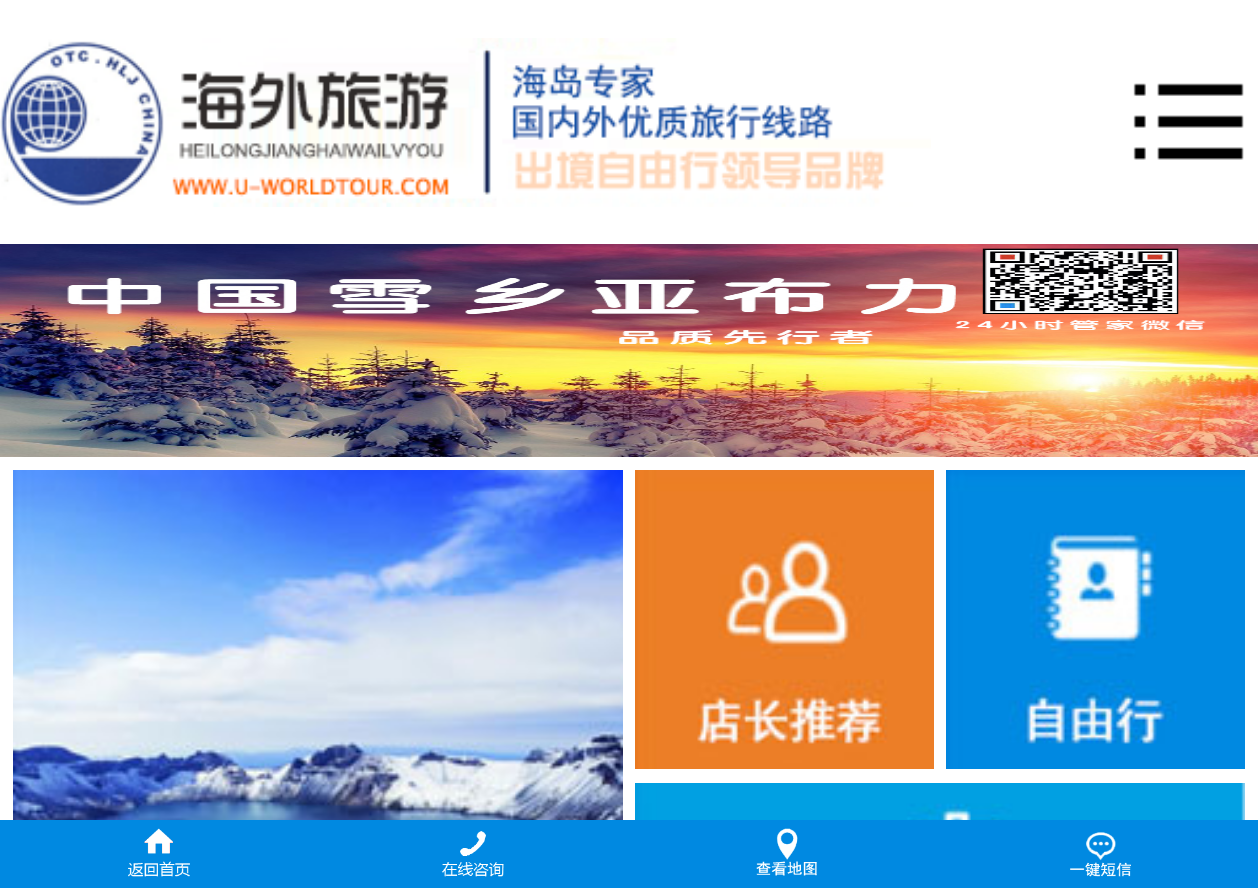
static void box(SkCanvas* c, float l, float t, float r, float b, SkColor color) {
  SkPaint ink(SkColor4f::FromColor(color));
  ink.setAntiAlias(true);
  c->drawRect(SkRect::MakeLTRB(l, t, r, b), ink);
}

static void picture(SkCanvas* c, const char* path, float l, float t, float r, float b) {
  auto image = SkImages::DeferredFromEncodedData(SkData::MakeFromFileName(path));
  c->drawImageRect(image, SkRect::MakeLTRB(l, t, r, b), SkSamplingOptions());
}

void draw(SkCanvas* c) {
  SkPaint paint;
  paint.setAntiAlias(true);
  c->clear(0xffffffff);
  picture(c, "img_01.png", 0, 38, 931, 207);
  picture(c, "img_02.png", 1133, 83, 1244, 160);
  picture(c, "img_03.png", 0, 244, 1258, 457);
  picture(c, "img_04.png", 13, 470, 623, 820);
  picture(c, "img_05.png", 635, 470, 934, 769);
  picture(c, "img_06.png", 946, 470, 1245, 769);
  picture(c, "img_07.png", 635, 783, 1245, 820);
  box(c, 0, 820, 1258, 888, 0xff0089e1);
  picture(c, "img_08.png", 128, 828, 190, 877);
  picture(c, "img_09.png", 441, 831, 504, 877);
  picture(c, "img_10.png", 756, 828, 817, 876);
  picture(c, "img_11.png", 1070, 832, 1131, 877);
}
